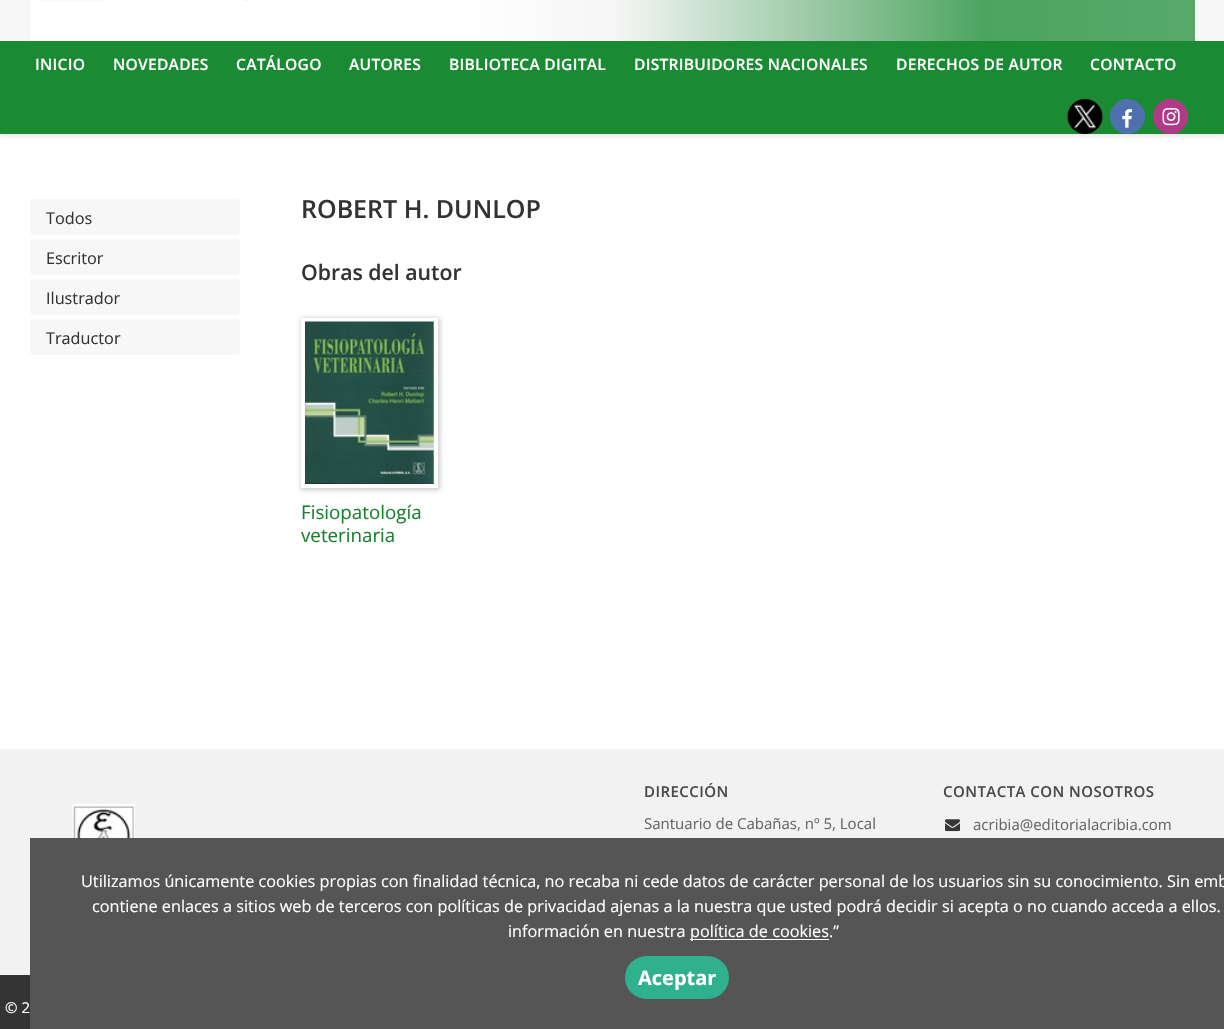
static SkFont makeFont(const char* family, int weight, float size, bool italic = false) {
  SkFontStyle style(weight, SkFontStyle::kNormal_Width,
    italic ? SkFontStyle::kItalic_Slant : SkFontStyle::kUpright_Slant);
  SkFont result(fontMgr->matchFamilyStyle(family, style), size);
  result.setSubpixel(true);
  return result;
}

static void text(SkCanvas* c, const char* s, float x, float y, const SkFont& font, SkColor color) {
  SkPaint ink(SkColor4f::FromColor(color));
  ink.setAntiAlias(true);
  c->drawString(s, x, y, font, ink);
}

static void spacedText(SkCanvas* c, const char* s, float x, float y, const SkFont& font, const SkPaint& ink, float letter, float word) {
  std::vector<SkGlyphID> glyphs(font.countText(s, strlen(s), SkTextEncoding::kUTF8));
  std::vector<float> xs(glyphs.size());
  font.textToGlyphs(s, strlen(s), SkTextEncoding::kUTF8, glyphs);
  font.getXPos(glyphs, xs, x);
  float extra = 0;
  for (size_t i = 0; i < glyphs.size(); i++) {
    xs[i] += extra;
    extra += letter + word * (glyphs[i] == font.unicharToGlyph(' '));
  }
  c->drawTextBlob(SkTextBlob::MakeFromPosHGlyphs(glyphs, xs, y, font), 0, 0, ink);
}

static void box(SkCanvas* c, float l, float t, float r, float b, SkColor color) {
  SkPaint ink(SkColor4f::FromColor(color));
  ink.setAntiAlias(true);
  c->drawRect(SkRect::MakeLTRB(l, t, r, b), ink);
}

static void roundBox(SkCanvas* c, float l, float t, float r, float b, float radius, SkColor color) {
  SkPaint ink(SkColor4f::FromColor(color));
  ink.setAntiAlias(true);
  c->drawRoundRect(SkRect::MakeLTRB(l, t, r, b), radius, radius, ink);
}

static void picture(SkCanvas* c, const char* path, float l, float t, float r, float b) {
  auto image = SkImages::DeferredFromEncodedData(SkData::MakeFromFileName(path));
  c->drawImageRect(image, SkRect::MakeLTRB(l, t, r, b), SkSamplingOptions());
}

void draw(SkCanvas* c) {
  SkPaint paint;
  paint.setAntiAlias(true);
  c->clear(0xffffffff);
  paint.setColor(0x1a000000);
  paint.setMaskFilter(SkMaskFilter::MakeBlur(kNormal_SkBlurStyle, 2.5f));
  c->drawRect(SkRect::MakeLTRB(0, -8, 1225, 136), paint);
  paint.setMaskFilter(nullptr);
  box(c, 0, 0, 1224, 41, 0xfff7f7f7);
  {
    const SkColor colors[] = {0xffffffff, 0xfffefefe, 0xfff6f6f6, 0xff4da460, 0xff58a96a};
    const float stops[] = {0.02f, 0.38f, 0.5f, 0.82f, 1};
    const SkPoint ends[] = {{30, -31}, {1195, -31}};
    paint.setShader(SkGradientShader::MakeLinear(ends, colors, stops, 5, SkTileMode::kClamp));
    paint.setAlpha(255);
  }
  c->drawRect(SkRect::MakeLTRB(30, 0, 1195, 41), paint);
  picture(c, "img_01.png", 40, 0, 247, 1);
  box(c, 0, 41, 1224, 134, 0xff1a8b33);
  SkFont face1 = makeFont("Open Sans", 600, 15.6f);
  paint.setShader(nullptr);
  paint.setColor(0xffffffff);
  spacedText(c, "INICIO", 35, 70, face1, paint, 0.25f, 0);
  spacedText(c, "NOVEDADES", 113, 70, face1, paint, 0.25f, 0);
  spacedText(c, "CATÁLOGO", 236, 70, face1, paint, 0.25f, 0);
  spacedText(c, "AUTORES", 349, 70, face1, paint, 0.25f, 0);
  spacedText(c, "BIBLIOTECA DIGITAL", 449, 70, face1, paint, 0.25f, 0);
  spacedText(c, "DISTRIBUIDORES NACIONALES", 634, 70, face1, paint, 0.25f, 0);
  spacedText(c, "DERECHOS DE AUTOR", 896, 70, face1, paint, 0.25f, 0);
  spacedText(c, "CONTACTO", 1090, 70, face1, paint, 0.25f, 0);
  picture(c, "img_02.png", 1067, 99, 1103, 134);
  paint.setColor(0xff4e71ae);
  c->drawCircle(1127.5f, 116.5f, 17.5f, paint);
  picture(c, "img_03.png", 1122, 109, 1132, 128);
  paint.setColor(0xffb03a88);
  c->drawCircle(1170.5f, 116.5f, 17.5f, paint);
  picture(c, "img_04.png", 1162, 108, 1180, 126);
  roundBox(c, 30, 199, 240, 235, 4, 0xfff7f7f7);
  SkFont face2 = makeFont("Open Sans", 400, 16.25f);
  text(c, "Todos", 46, 224, face2, 0xff333333);
  roundBox(c, 30, 239, 240, 275, 4, 0xfff7f7f7);
  text(c, "Escritor", 46, 264, face2, 0xff333333);
  roundBox(c, 30, 279, 240, 315, 4, 0xfff7f7f7);
  text(c, "Ilustrador", 46, 304, face2, 0xff333333);
  roundBox(c, 30, 319, 240, 355, 4, 0xfff7f7f7);
  text(c, "Traductor", 46, 344, face2, 0xff333333);
  SkFont face3 = makeFont("Open Sans", 600, 25);
  text(c, "ROBERT H. DUNLOP", 301, 218, face3, 0xff333333);
  SkFont face4 = makeFont("Open Sans", 600, 21.25f);
  text(c, "Obras del autor", 301, 280, face4, 0xff333333);
  paint.setColor(0x33000000);
  paint.setMaskFilter(SkMaskFilter::MakeBlur(kNormal_SkBlurStyle, 2.5f));
  c->drawRect(SkRect::MakeLTRB(301, 318, 440, 490), paint);
  paint.setMaskFilter(nullptr);
  box(c, 301, 318, 438, 488, 0xffffffff);
  picture(c, "img_05.png", 305, 321, 434, 484);
  SkFont face5 = makeFont("Open Sans", 400, 18.75f);
  text(c, "Fisiopatología", 301, 519, face5, 0xff18812f);
  text(c, "veterinaria", 301, 542, face5, 0xff18812f);
  box(c, 0, 749, 1224, 975, 0xfff2f2f2);
  picture(c, "img_06.png", 72, 804, 135, 838);
  SkFont face6 = makeFont("Open Sans", 600, 15);
  paint.setColor(0xff4a4a4a);
  spacedText(c, "DIRECCIÓN", 644, 797, face6, paint, 0.45f, 0);
  SkFont face7 = makeFont("Open Sans", 400, 15);
  text(c, "Santuario de Cabañas, nº 5, Local", 644, 829, face7, 0xff666666);
  spacedText(c, "CONTACTA CON NOSOTROS", 943, 797, face6, paint, 0.45f, 0);
  picture(c, "img_07.png", 945, 819, 960, 832);
  text(c, "acribia@editorialacribia.com", 973, 830, face7, 0xff666666);
  box(c, 30, 838, 1224, 1029, 0xff555555);
  text(c, "Utilizamos únicamente cookies propias con finalidad técnica, no recaba ni cede datos de carácter personal de los usuarios sin su conocimiento. Sin emb", 81, 887, face2, 0xffffffff);
  text(c, "contiene enlaces a sitios web de terceros con políticas de privacidad ajenas a la nuestra que usted podrá decidir si acepta o no cuando acceda a ellos.", 92, 912, face2, 0xffffffff);
  text(c, "información en nuestra", 508, 937, face2, 0xffffffff);
  box(c, 690, 939, 829, 940, 0xffffffff);
  text(c, "política de cookies.”", 690, 937, face2, 0xffffffff);
  roundBox(c, 625, 956, 729, 999, 21.5f, 0xff2fb18d);
  SkFont face8 = makeFont("Open Sans", 700, 20);
  text(c, "Aceptar", 638, 985, face8, 0xffffffff);
  box(c, 0, 975, 30, 1029, 0xff343434);
  text(c, "© 2", 5, 1013, face7, 0xffffffff);
}
